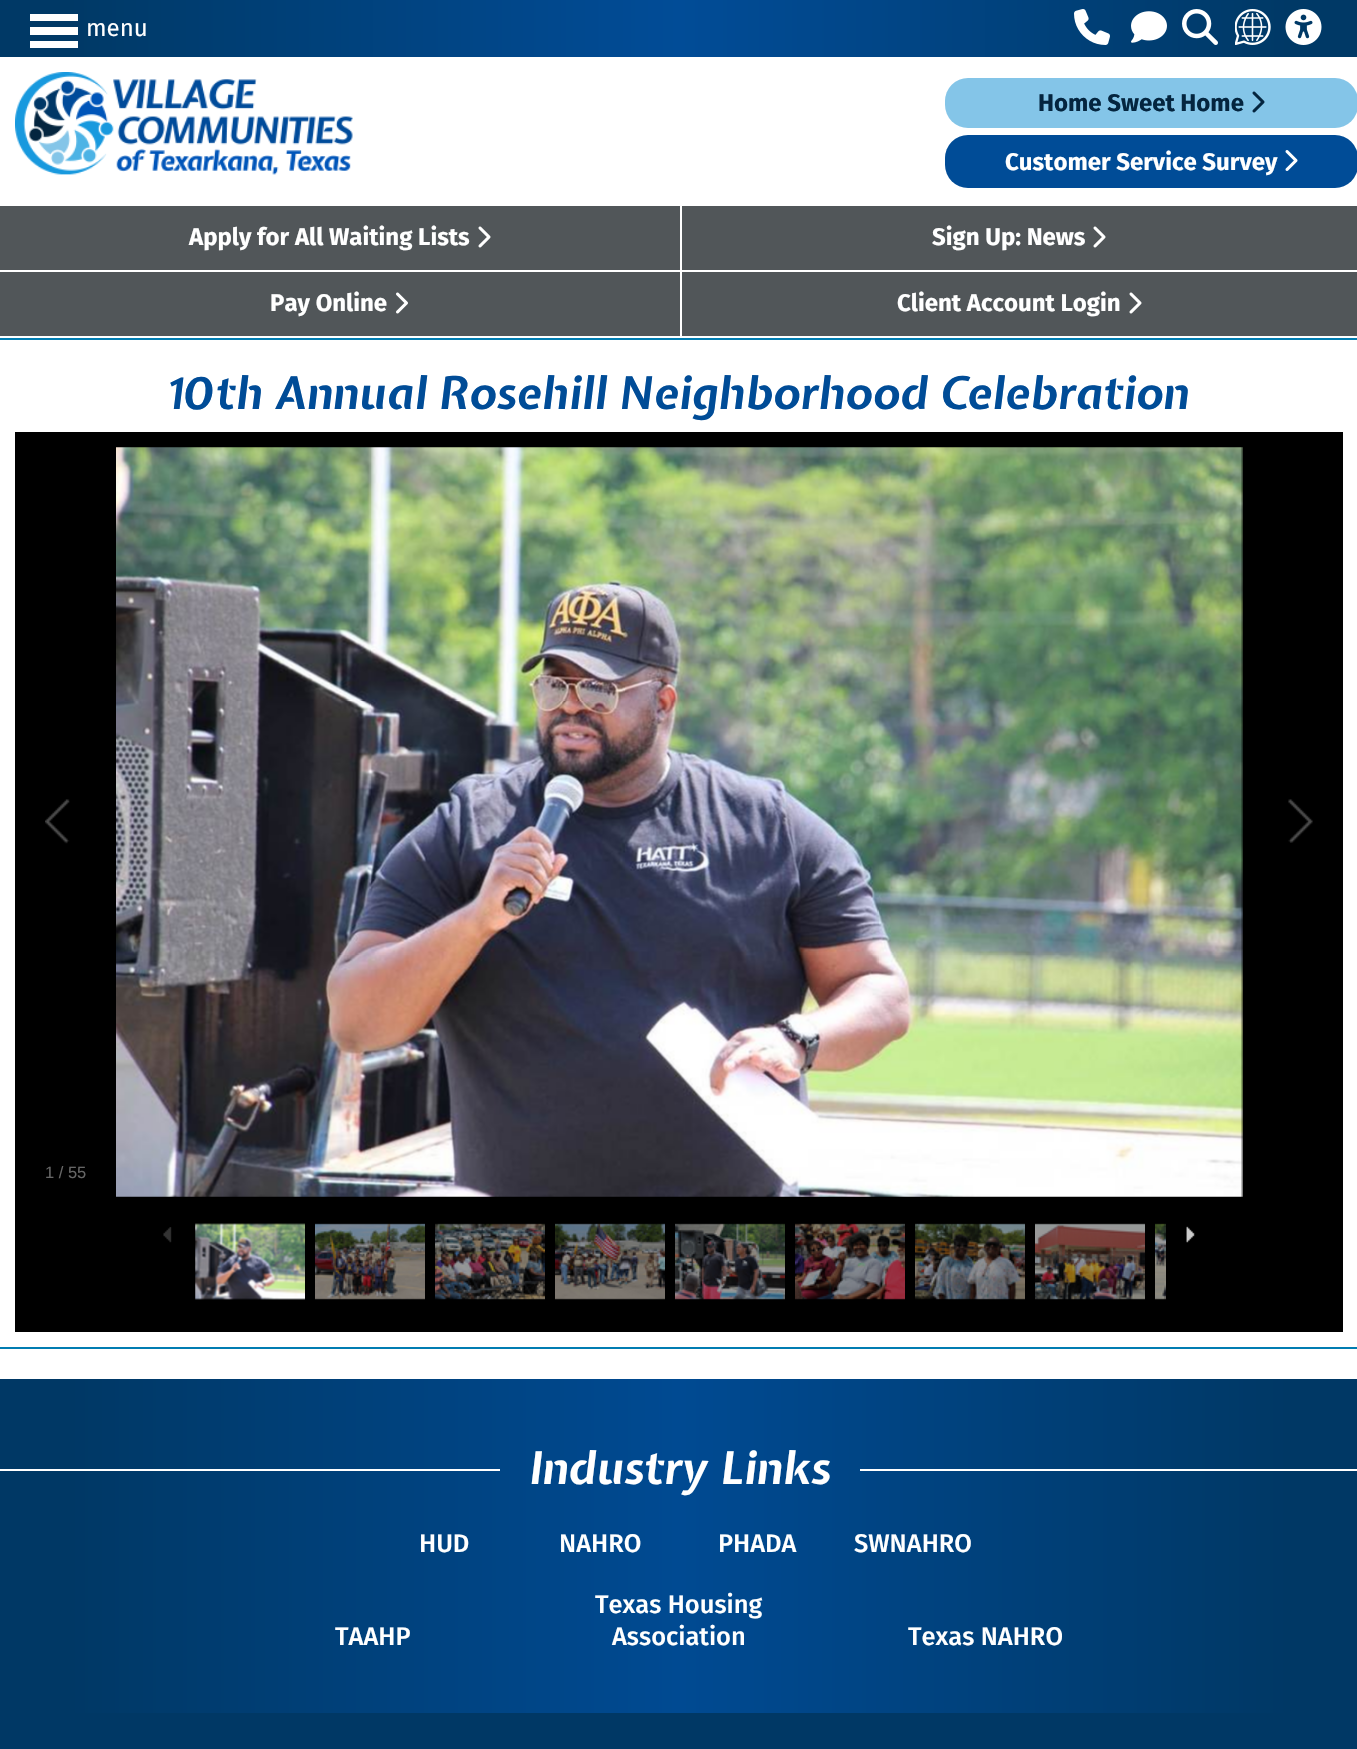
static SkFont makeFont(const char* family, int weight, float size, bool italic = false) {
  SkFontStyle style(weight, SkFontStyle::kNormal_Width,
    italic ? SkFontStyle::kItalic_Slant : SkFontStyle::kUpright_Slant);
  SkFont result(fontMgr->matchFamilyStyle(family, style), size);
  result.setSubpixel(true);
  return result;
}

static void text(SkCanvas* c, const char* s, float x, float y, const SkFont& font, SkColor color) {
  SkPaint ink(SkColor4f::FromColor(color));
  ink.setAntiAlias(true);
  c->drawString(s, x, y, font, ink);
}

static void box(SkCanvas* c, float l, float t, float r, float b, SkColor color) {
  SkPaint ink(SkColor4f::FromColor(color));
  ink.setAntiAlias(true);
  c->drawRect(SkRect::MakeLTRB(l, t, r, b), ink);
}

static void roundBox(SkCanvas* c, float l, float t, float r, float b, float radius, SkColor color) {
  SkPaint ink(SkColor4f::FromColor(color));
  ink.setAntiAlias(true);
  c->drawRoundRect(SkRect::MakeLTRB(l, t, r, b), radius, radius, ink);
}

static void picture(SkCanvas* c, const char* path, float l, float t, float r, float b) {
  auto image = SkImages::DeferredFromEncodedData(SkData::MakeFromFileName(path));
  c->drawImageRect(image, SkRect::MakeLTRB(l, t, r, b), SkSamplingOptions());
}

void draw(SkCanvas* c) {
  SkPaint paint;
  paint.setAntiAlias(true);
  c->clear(0xffffffff);
  {
    const SkColor colors[] = {0xff003966, 0xff014c97, 0xff003966};
    const float stops[] = {0.05f, 0.5f, 0.95f};
    const SkPoint ends[] = {{0, 29}, {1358, 28}};
    paint.setShader(SkGradientShader::MakeLinear(ends, colors, stops, 3, SkTileMode::kClamp));
    paint.setAlpha(255);
  }
  c->drawRect(SkRect::MakeLTRB(0, 0, 1357, 57), paint);
  box(c, 30, 14, 78, 21, 0xffffffff);
  box(c, 30, 27, 78, 35, 0xffffffff);
  box(c, 30, 41, 78, 48, 0xffffffff);
  SkFont face1 = makeFont("Fira Sans", 400, 24);
  text(c, "menu", 86, 36, face1, 0xffffffff);
  picture(c, "img_01.png", 1074, 9, 1110, 45);
  picture(c, "img_02.png", 1131, 11, 1167, 43);
  picture(c, "img_03.png", 1182, 9, 1218, 45);
  picture(c, "img_04.png", 1235, 9, 1271, 45);
  picture(c, "img_05.png", 1285, 9, 1322, 45);
  picture(c, "img_06.png", 15, 72, 353, 175);
  roundBox(c, 945, 78, 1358, 128, 23, 0xff84c5e8);
  SkFont face2 = makeFont("Fira Sans", 700, 24);
  text(c, "Home Sweet Home", 1038, 111, face2, 0xff04253f);
  picture(c, "img_07.png", 1252, 91, 1265, 113);
  roundBox(c, 945, 135, 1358, 188, 23, 0xff004c97);
  text(c, "Customer Service Survey", 1005, 170, face2, 0xffffffff);
  picture(c, "img_08.png", 1285, 150, 1298, 171);
  box(c, 0, 206, 1357, 336, 0xff515659);
  box(c, 0, 270, 1357, 272, 0xffffffff);
  text(c, "Apply for All Waiting Lists", 189, 245, face2, 0xffffffff);
  picture(c, "img_09.png", 478, 226, 491, 248);
  box(c, 680, 206, 682, 338, 0xffffffff);
  text(c, "Sign Up: News", 932, 245, face2, 0xffffffff);
  picture(c, "img_09.png", 1093, 226, 1106, 248);
  text(c, "Pay Online", 270, 311, face2, 0xffffffff);
  picture(c, "img_10.png", 396, 292, 408, 314);
  text(c, "Client Account Login", 897, 311, face2, 0xffffffff);
  picture(c, "img_09.png", 1129, 292, 1142, 314);
  box(c, 0, 338, 1357, 340, 0xff007cb1);
  box(c, 0, 1347, 1357, 1349, 0xff007cb1);
  SkFont face3 = makeFont("Expletus Sans", 700, 45, true);
  text(c, "10th Annual Rosehill Neighborhood Celebration", 168, 409, face3, 0xff004c97);
  box(c, 15, 432, 1343, 1332, 0xff000000);
  picture(c, "img_11.png", 116, 447, 1243, 1197);
  picture(c, "img_12.png", 45, 799, 70, 844);
  picture(c, "img_13.png", 1288, 799, 1313, 843);
  SkFont face4 = makeFont("Liberation Sans", 400, 16.5f);
  text(c, "1 / 55", 45, 1178, face4, 0xff666666);
  picture(c, "img_14.png", 163, 1227, 172, 1243);
  picture(c, "img_15.png", 195, 1223, 305, 1300);
  picture(c, "img_16.png", 315, 1223, 425, 1300);
  picture(c, "img_17.png", 435, 1223, 545, 1300);
  picture(c, "img_18.png", 555, 1223, 665, 1300);
  picture(c, "img_19.png", 675, 1223, 785, 1300);
  picture(c, "img_20.png", 795, 1223, 905, 1300);
  picture(c, "img_21.png", 915, 1223, 1025, 1300);
  picture(c, "img_22.png", 1035, 1223, 1145, 1300);
  picture(c, "img_23.png", 1155, 1223, 1166, 1300);
  picture(c, "img_24.png", 1186, 1226, 1195, 1243);
  {
    const SkColor colors[] = {0xff003865, 0xff004a92, 0xff003865};
    const float stops[] = {0.05f, 0.5f, 0.95f};
    const SkPoint ends[] = {{0, 1546}, {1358, 1546}};
    paint.setShader(SkGradientShader::MakeLinear(ends, colors, stops, 3, SkTileMode::kClamp));
    paint.setAlpha(255);
  }
  c->drawRect(SkRect::MakeLTRB(0, 1379, 1357, 1713), paint);
  box(c, 0, 1469, 500, 1471, 0xffffffff);
  text(c, "Industry Links", 528, 1484, face3, 0xffffffff);
  box(c, 860, 1469, 1357, 1471, 0xffffffff);
  SkFont face5 = makeFont("Fira Sans", 500, 25.5f);
  text(c, "HUD", 419, 1552, face5, 0xffffffff);
  text(c, "NAHRO", 559, 1552, face5, 0xffffffff);
  text(c, "PHADA", 718, 1552, face5, 0xffffffff);
  text(c, "SWNAHRO", 854, 1552, face5, 0xffffffff);
  text(c, "TAAHP", 335, 1645, face5, 0xffffffff);
  text(c, "Texas Housing", 595, 1613, face5, 0xffffffff);
  text(c, "Association", 612, 1645, face5, 0xffffffff);
  text(c, "Texas NAHRO", 908, 1645, face5, 0xffffffff);
  box(c, 0, 1713, 1357, 1749, 0xff003865);
}
